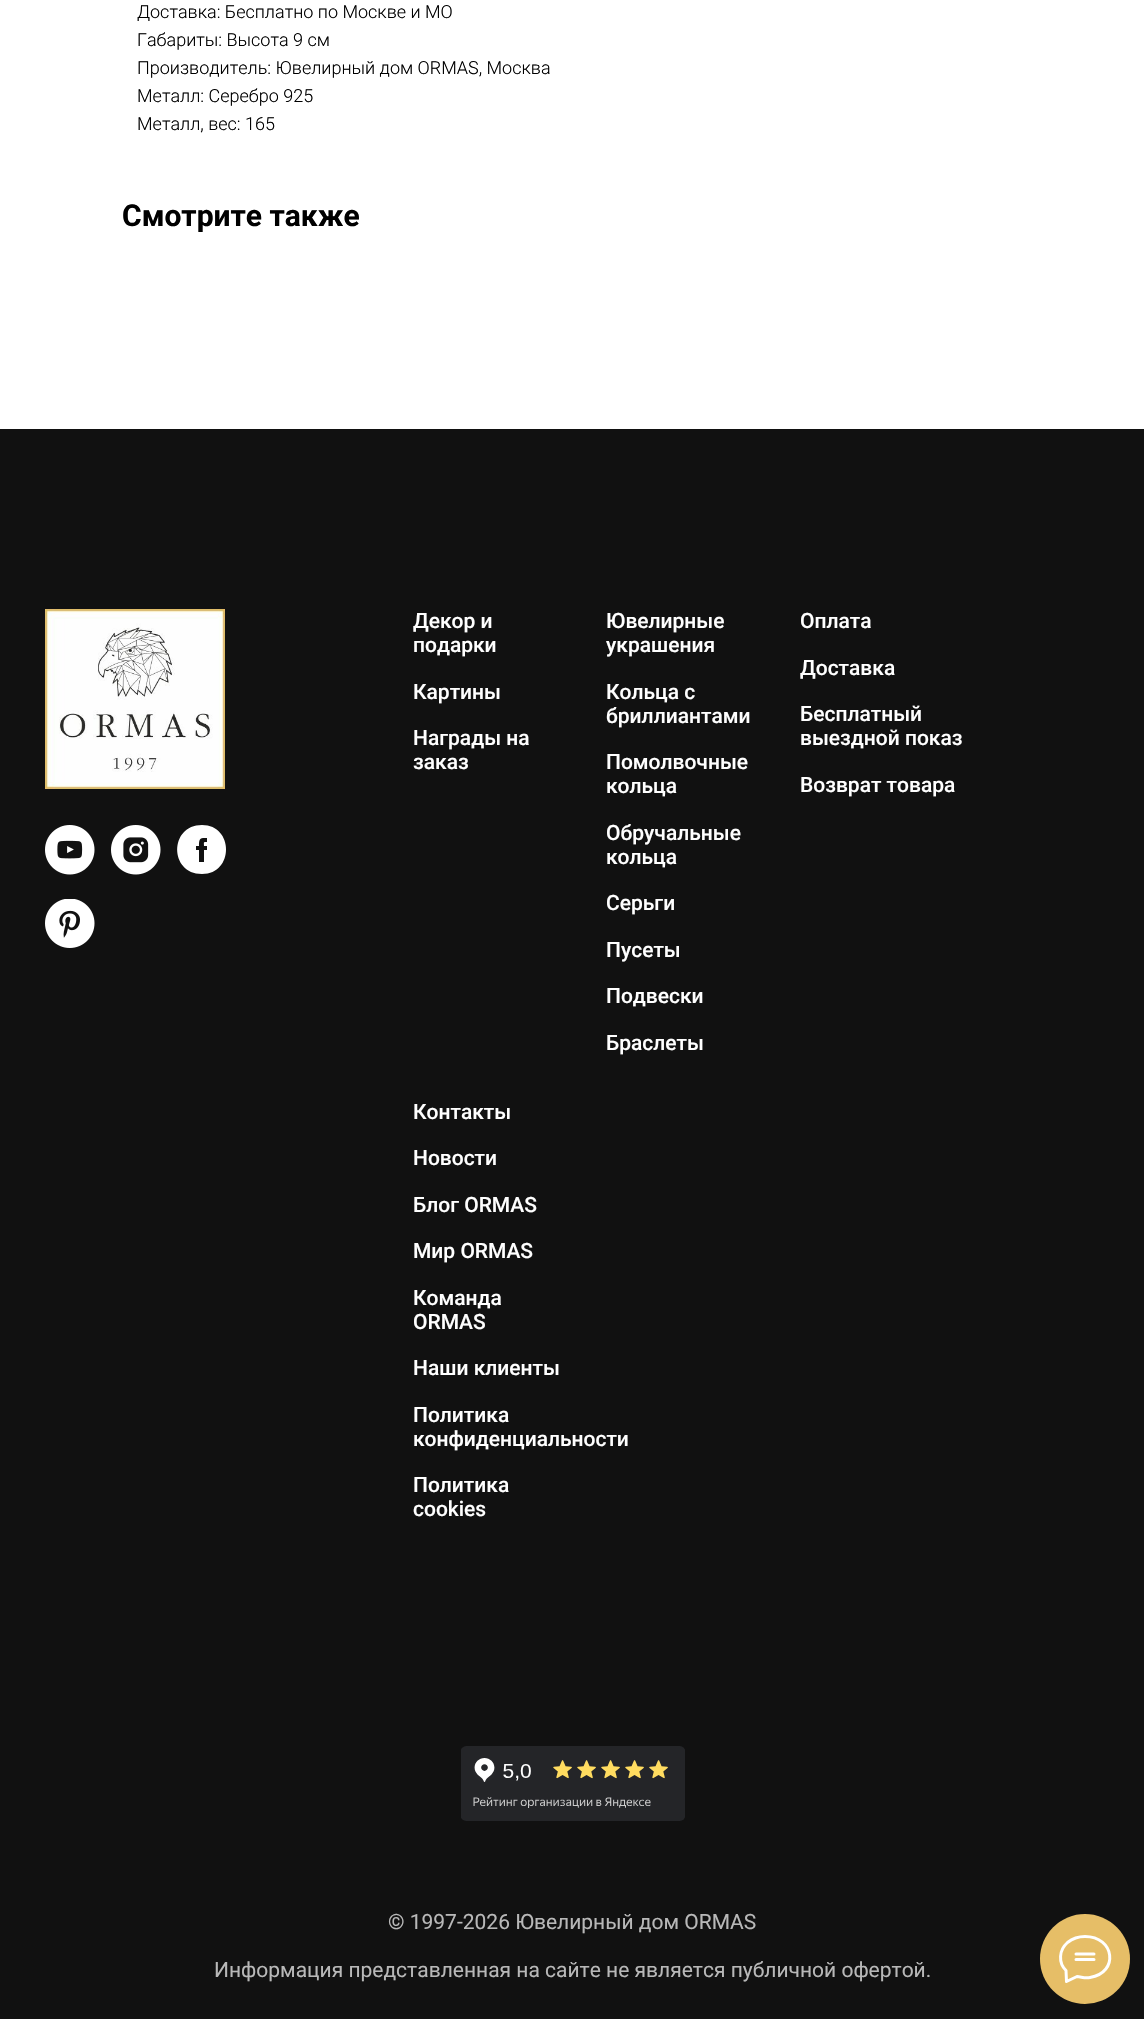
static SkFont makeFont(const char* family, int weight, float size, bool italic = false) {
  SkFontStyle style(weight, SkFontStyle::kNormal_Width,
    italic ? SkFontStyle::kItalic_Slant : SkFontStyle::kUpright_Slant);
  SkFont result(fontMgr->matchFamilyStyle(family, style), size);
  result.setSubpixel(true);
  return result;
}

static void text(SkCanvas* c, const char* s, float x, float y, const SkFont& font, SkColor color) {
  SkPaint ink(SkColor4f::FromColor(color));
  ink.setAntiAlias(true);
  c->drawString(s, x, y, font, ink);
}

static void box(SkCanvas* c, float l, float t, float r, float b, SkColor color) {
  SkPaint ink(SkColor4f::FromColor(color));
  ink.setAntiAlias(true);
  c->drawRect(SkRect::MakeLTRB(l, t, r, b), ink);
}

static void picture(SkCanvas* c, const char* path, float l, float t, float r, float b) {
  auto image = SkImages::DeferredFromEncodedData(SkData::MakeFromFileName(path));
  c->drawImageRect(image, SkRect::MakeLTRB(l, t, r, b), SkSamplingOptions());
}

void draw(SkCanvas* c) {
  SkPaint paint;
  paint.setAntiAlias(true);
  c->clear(0xffffffff);
  SkFont face1 = makeFont("Roboto", 300, 18);
  text(c, "Доставка: Бесплатно по Москве и МО", 137, 18, face1, 0xff000000);
  text(c, "Габариты: Высота 9 см", 137, 46, face1, 0xff000000);
  text(c, "Производитель: Ювелирный дом ORMAS, Москва", 137, 74, face1, 0xff000000);
  text(c, "Металл: Серебро 925", 137, 102, face1, 0xff000000);
  text(c, "Металл, вес: 165", 137, 130, face1, 0xff000000);
  SkFont face2 = makeFont("Roboto", 700, 30);
  text(c, "Смотрите также", 122, 226, face2, 0xff000000);
  box(c, 0, 429, 1144, 2019, 0xff111111);
  picture(c, "img_01.png", 45, 609, 225, 789);
  SkFont face3 = makeFont("Roboto", 500, 21);
  text(c, "Декор и", 413, 628, face3, 0xffffffff);
  text(c, "подарки", 413, 652, face3, 0xffffffff);
  text(c, "Картины", 413, 699, face3, 0xffffffff);
  text(c, "Награды на", 413, 745, face3, 0xffffffff);
  text(c, "заказ", 413, 769, face3, 0xffffffff);
  text(c, "Ювелирные", 606, 628, face3, 0xffffffff);
  text(c, "украшения", 606, 652, face3, 0xffffffff);
  text(c, "Кольца с", 606, 699, face3, 0xffffffff);
  text(c, "бриллиантами", 606, 723, face3, 0xffffffff);
  text(c, "Помолвочные", 606, 769, face3, 0xffffffff);
  text(c, "кольца", 606, 793, face3, 0xffffffff);
  text(c, "Обручальные", 606, 840, face3, 0xffffffff);
  text(c, "кольца", 606, 864, face3, 0xffffffff);
  text(c, "Серьги", 606, 910, face3, 0xffffffff);
  text(c, "Пусеты", 606, 957, face3, 0xffffffff);
  text(c, "Подвески", 606, 1003, face3, 0xffffffff);
  text(c, "Браслеты", 606, 1050, face3, 0xffffffff);
  text(c, "Оплата", 800, 628, face3, 0xffffffff);
  text(c, "Доставка", 800, 675, face3, 0xffffffff);
  text(c, "Бесплатный", 800, 721, face3, 0xffffffff);
  text(c, "выездной показ", 800, 745, face3, 0xffffffff);
  text(c, "Возврат товара", 800, 792, face3, 0xffffffff);
  text(c, "Контакты", 413, 1119, face3, 0xffffffff);
  text(c, "Новости", 413, 1165, face3, 0xffffffff);
  text(c, "Блог ORMAS", 413, 1212, face3, 0xffffffff);
  text(c, "Мир ORMAS", 413, 1258, face3, 0xffffffff);
  text(c, "Команда", 413, 1305, face3, 0xffffffff);
  text(c, "ORMAS", 413, 1329, face3, 0xffffffff);
  text(c, "Наши клиенты", 413, 1375, face3, 0xffffffff);
  text(c, "Политика", 413, 1422, face3, 0xffffffff);
  text(c, "конфиденциальности", 413, 1446, face3, 0xffffffff);
  text(c, "Политика", 413, 1492, face3, 0xffffffff);
  text(c, "cookies", 413, 1516, face3, 0xffffffff);
  picture(c, "img_02.png", 45, 825, 95, 875);
  picture(c, "img_03.png", 111, 825, 161, 875);
  paint.setColor(0xffffffff);
  c->drawPath(SkPathBuilder(SkPathFillType::kEvenOdd).moveTo(202, 874).cubicTo(234, 874, 234, 825, 202, 825).cubicTo(169, 825, 169, 874, 202, 874).close().moveTo(203, 838).cubicTo(199, 838, 199, 842, 199, 846).lineTo(196, 846).lineTo(196, 850).lineTo(199, 850).lineTo(199, 862).lineTo(204, 862).lineTo(204, 850).lineTo(207, 850).lineTo(207, 846).lineTo(204, 846).cubicTo(204, 842, 203, 842, 207, 842).lineTo(207, 838).close().detach(), paint);
  picture(c, "img_04.png", 45, 899, 95, 948);
  picture(c, "img_05.png", 461, 1746, 685, 1821);
  SkFont face4 = makeFont("Roboto", 400, 21);
  text(c, "© 1997-2026 Ювелирный дом ORMAS", 388, 1929, face4, 0xffb8b8b8);
  text(c, "Информация представленная на сайте не является публичной офертой.", 214, 1977, face4, 0xffb8b8b8);
  paint.setColor(0xffe6be67);
  c->drawCircle(1085, 1959, 45, paint);
  paint.setStyle(SkPaint::kStroke_Style);
  paint.setStrokeWidth(3);
  paint.setStrokeCap(SkPaint::kRound_Cap);
  paint.setStrokeJoin(SkPaint::kRound_Join);
  paint.setColor(0xffffffff);
  c->drawPath(SkPathBuilder().moveTo(1076, 1954).lineTo(1094, 1954).moveTo(1076, 1959.5f).lineTo(1094, 1959.5f).moveTo(1066, 1970.5f).cubicTo(1058, 1962.5f, 1059, 1950, 1067.5f, 1942.5f).cubicTo(1072.5f, 1938.5f, 1079, 1936.5f, 1085, 1936.5f).cubicTo(1114.5f, 1936.5f, 1119.5f, 1972.5f, 1090, 1977.5f).cubicTo(1085, 1978.5f, 1082, 1977, 1077, 1976.5f).lineTo(1066.5f, 1981.5f).close().detach(), paint);
}
